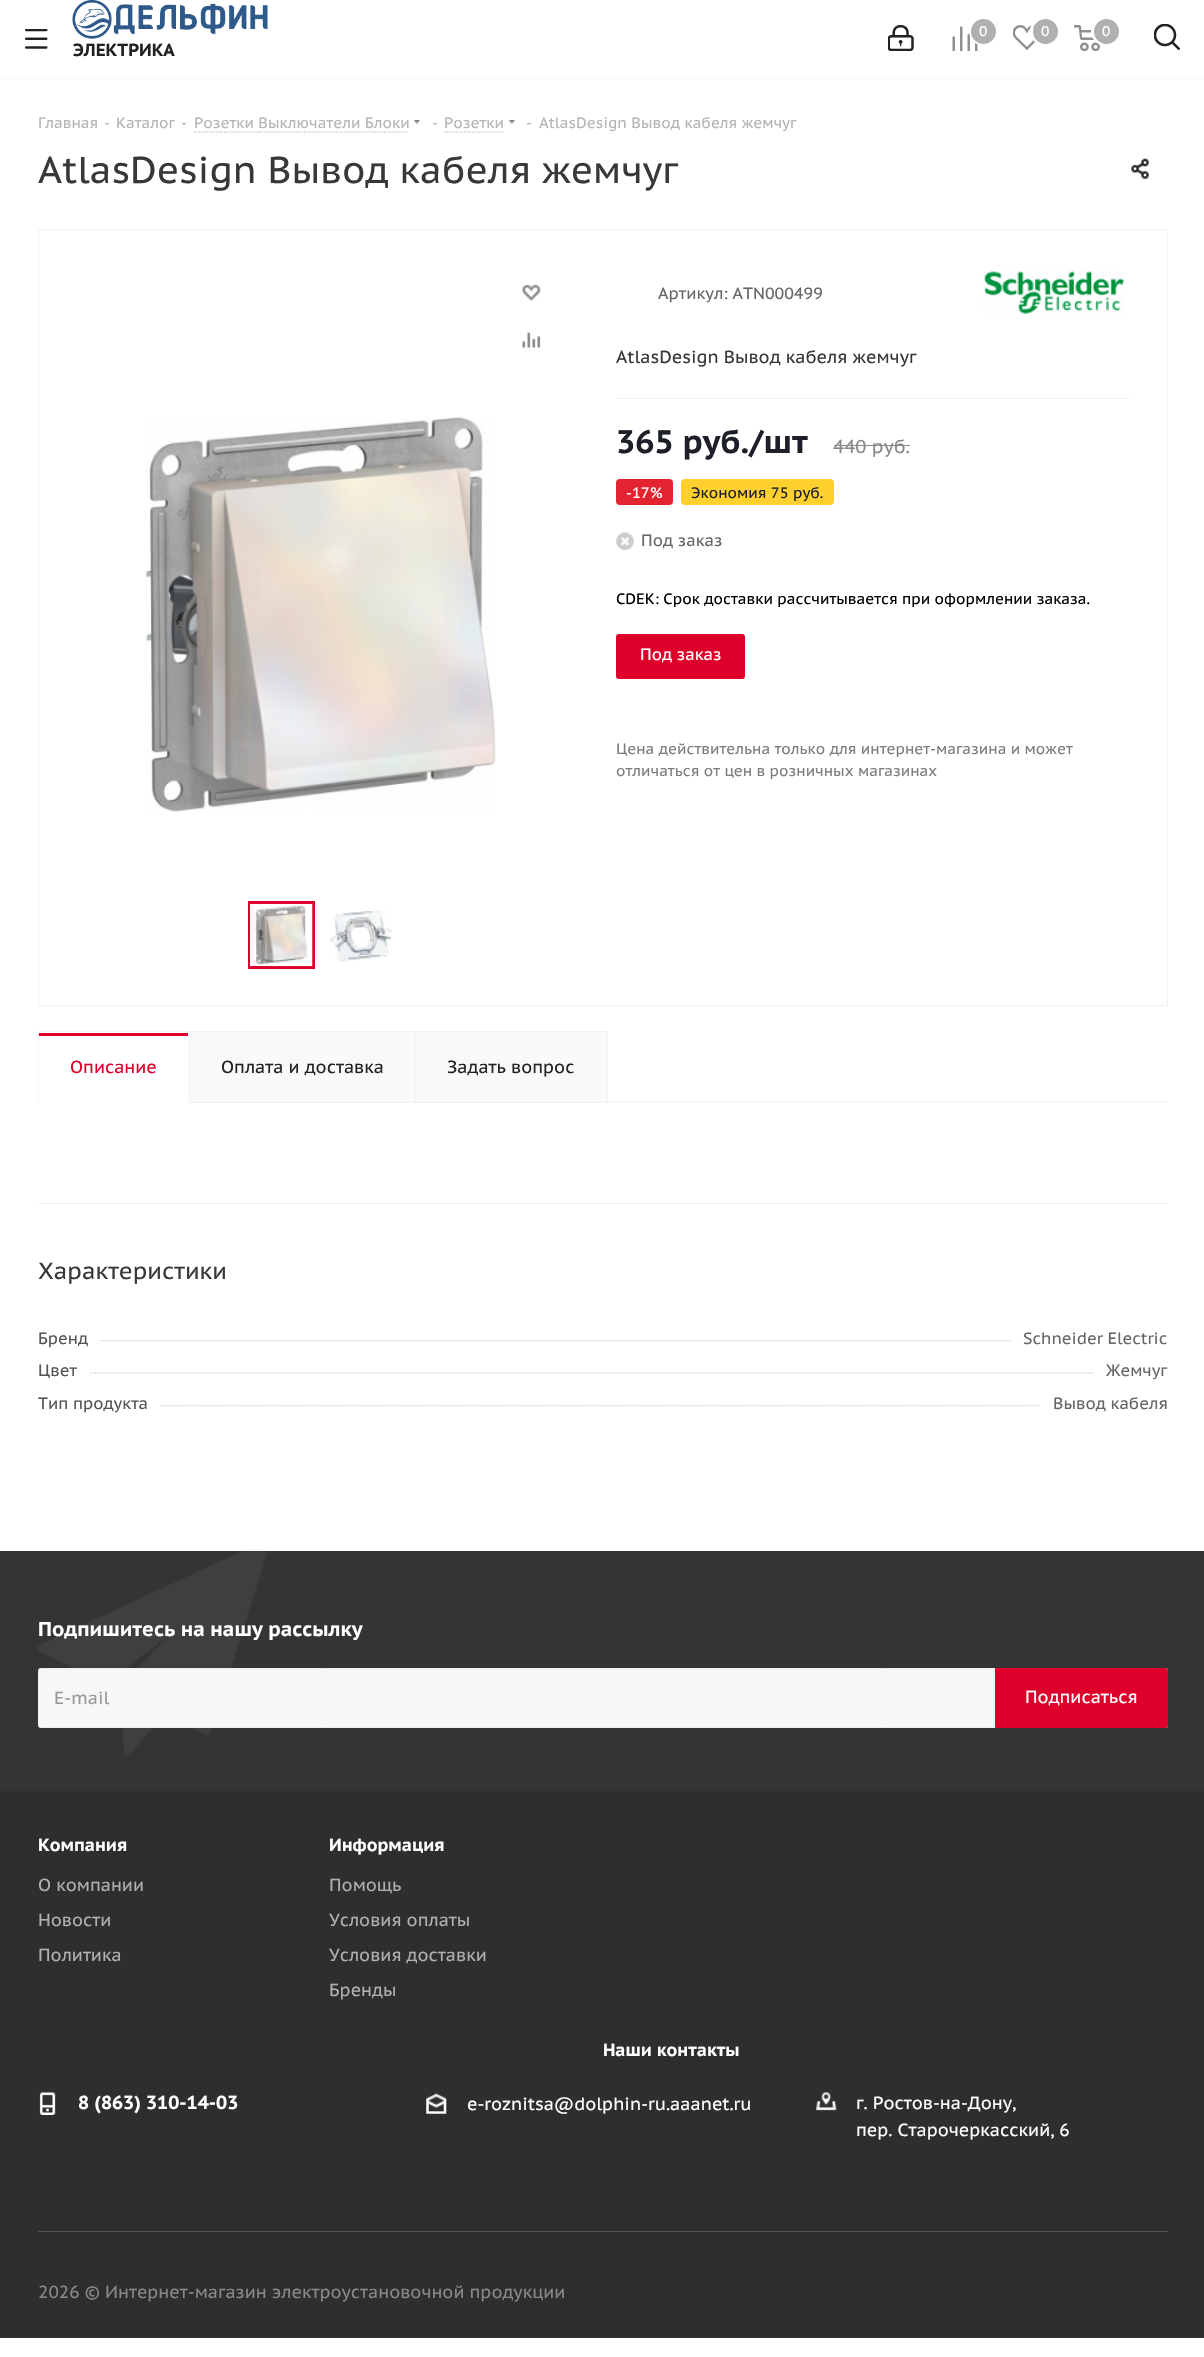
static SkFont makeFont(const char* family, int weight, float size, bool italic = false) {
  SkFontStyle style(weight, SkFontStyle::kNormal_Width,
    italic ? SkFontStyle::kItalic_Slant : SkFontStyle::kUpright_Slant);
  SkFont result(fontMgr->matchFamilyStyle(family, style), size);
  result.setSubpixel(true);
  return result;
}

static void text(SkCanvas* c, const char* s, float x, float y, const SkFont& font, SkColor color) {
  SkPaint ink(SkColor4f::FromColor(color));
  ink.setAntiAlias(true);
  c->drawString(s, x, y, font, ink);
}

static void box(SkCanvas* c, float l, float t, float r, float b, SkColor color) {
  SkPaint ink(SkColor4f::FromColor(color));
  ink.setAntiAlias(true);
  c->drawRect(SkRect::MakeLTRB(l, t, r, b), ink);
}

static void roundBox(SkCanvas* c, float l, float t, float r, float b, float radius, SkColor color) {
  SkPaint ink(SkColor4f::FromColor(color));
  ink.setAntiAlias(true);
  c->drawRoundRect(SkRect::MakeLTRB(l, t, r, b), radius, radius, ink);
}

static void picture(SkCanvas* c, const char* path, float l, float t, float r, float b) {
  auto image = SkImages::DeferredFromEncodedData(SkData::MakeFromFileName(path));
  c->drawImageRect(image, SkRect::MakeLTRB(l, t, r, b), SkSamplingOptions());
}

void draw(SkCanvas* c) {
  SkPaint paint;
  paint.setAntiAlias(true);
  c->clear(0xffffffff);
  box(c, 0, 78, 1204, 79, 0xfff5f5f5);
  picture(c, "img_01.png", 25, 29, 48, 49);
  picture(c, "img_02.png", 72, 0, 268, 39);
  SkFont face1 = makeFont("PT Sans Caption", 700, 17.5f);
  text(c, "ЭЛЕКТРИКА", 73, 56, face1, 0xff222222);
  picture(c, "img_03.png", 888, 25, 914, 51);
  picture(c, "img_04.png", 952, 26, 978, 51);
  paint.setStyle(SkPaint::kStroke_Style);
  paint.setStrokeWidth(3);
  paint.setColor(0xffffffff);
  c->drawCircle(984, 31, 13.5f, paint);
  paint.setStyle(SkPaint::kFill_Style);
  paint.setColor(0xffb0b0b0);
  c->drawCircle(983.5f, 31.5f, 12.5f, paint);
  SkFont face2 = makeFont("PT Sans Caption", 400, 14);
  text(c, "0", 979, 36, face2, 0xffffffff);
  picture(c, "img_05.png", 1013, 25, 1037, 50);
  paint.setStyle(SkPaint::kStroke_Style);
  paint.setColor(0xffffffff);
  c->drawCircle(1045, 31, 13.5f, paint);
  paint.setStyle(SkPaint::kFill_Style);
  paint.setColor(0xffb0b0b0);
  c->drawCircle(1045.5f, 31.5f, 12.5f, paint);
  text(c, "0", 1041, 36, face2, 0xffffffff);
  picture(c, "img_06.png", 1074, 25, 1100, 51);
  paint.setStyle(SkPaint::kStroke_Style);
  paint.setColor(0xffffffff);
  c->drawCircle(1106, 31, 13.5f, paint);
  paint.setStyle(SkPaint::kFill_Style);
  paint.setColor(0xffb0b0b0);
  c->drawCircle(1106.5f, 31.5f, 12.5f, paint);
  text(c, "0", 1102, 36, face2, 0xffffffff);
  picture(c, "img_07.png", 1154, 24, 1180, 50);
  SkFont face3 = makeFont("PT Sans Caption", 400, 15);
  text(c, "Главная", 38, 128, face3, 0xffb6b5b5);
  text(c, "-", 104, 128, face3, 0xffb6b5b5);
  text(c, "Каталог", 116, 128, face3, 0xffb6b5b5);
  text(c, "-", 181, 128, face3, 0xffb6b5b5);
  text(c, "Розетки Выключатели Блоки", 194, 128, face3, 0xffb6b5b5);
  paint.setStyle(SkPaint::kStroke_Style);
  paint.setStrokeWidth(1.2f);
  paint.setColor(0xffb4b4b4);
  paint.setPathEffect(SkDashPathEffect::Make({{1.25f, 1.25f}}, 0));
  c->drawPath(SkPathBuilder().moveTo(194, 132).lineTo(409, 132).detach(), paint);
  paint.setPathEffect(nullptr);
  picture(c, "img_08.png", 413, 120, 420, 124);
  text(c, "-", 432, 128, face3, 0xffb6b5b5);
  text(c, "Розетки", 444, 128, face3, 0xffb6b5b5);
  paint.setPathEffect(SkDashPathEffect::Make({{1.25f, 1.25f}}, 0));
  c->drawPath(SkPathBuilder().moveTo(444, 132).lineTo(504, 132).detach(), paint);
  paint.setPathEffect(nullptr);
  picture(c, "img_08.png", 508, 120, 515, 124);
  text(c, "-", 526, 128, face3, 0xffb6b5b5);
  text(c, "AtlasDesign Вывод кабеля жемчуг", 539, 128, face3, 0xffb6b5b5);
  SkFont face4 = makeFont("PT Sans Caption", 400, 37.3f);
  text(c, "AtlasDesign Вывод кабеля жемчуг", 38, 183, face4, 0xff383838);
  picture(c, "img_09.png", 1131, 158, 1149, 179);
  paint.setStrokeWidth(1);
  paint.setColor(0xfff2f2f2);
  c->drawRect(SkRect::MakeLTRB(38.5f, 229.5f, 1167.5f, 1005.5f), paint);
  picture(c, "img_10.png", 522, 284, 541, 302);
  picture(c, "img_11.png", 522, 332, 541, 348);
  picture(c, "img_12.png", 145, 417, 496, 812);
  paint.setStrokeWidth(3);
  paint.setColor(0xffde002b);
  c->drawRect(SkRect::MakeLTRB(249.5f, 902.5f, 313.5f, 967.5f), paint);
  picture(c, "img_13.png", 250, 903, 313, 967);
  picture(c, "img_14.png", 330, 910, 393, 962);
  box(c, 616, 398, 1129, 399, 0xfff2f2f2);
  SkFont face5 = makeFont("PT Sans Caption", 400, 16.25f);
  text(c, "Артикул: ATN000499", 658, 299, face5, 0xff666666);
  picture(c, "img_15.png", 983, 271, 1124, 314);
  SkFont face6 = makeFont("PT Sans Caption", 400, 17.5f);
  text(c, "AtlasDesign Вывод кабеля жемчуг", 616, 363, face6, 0xff383838);
  SkFont face7 = makeFont("PT Sans Caption", 700, 32.5f);
  text(c, "365 руб./шт", 616, 453, face7, 0xff1d2029);
  SkFont face8 = makeFont("PT Sans Caption", 400, 18.75f);
  text(c, "440 руб.", 833, 453, face8, 0xff888888);
  box(c, 834, 445, 910, 446, 0xff888888);
  roundBox(c, 616, 479, 673, 505, 4, 0xffe32330);
  text(c, "-17%", 626, 498, face3, 0xffffffff);
  roundBox(c, 681, 479, 834, 505, 4, 0xffffd02e);
  text(c, "Экономия 75 руб.", 691, 498, face3, 0xff1d2029);
  picture(c, "img_16.png", 616, 532, 634, 550);
  text(c, "Под заказ", 641, 546, face5, 0xff666666);
  text(c, "CDEK: Срок доставки рассчитывается при оформлении заказа.", 616, 604, face3, 0xff000000);
  paint.setStyle(SkPaint::kFill_Style);
  c->drawRoundRect(SkRect::MakeLTRB(616.5f, 634.5f, 744.5f, 678.5f), 2, 2, paint);
  paint.setStyle(SkPaint::kStroke_Style);
  paint.setStrokeWidth(1);
  c->drawRoundRect(SkRect::MakeLTRB(616.5f, 634.5f, 744.5f, 678.5f), 2, 2, paint);
  text(c, "Под заказ", 640, 660, face5, 0xffffffff);
  text(c, "Цена действительна только для интернет-магазина и может", 616, 754, face3, 0xff7d7d7d);
  text(c, "отличаться от цен в розничных магазинах", 616, 776, face3, 0xff7d7d7d);
  box(c, 608, 1101, 1168, 1102, 0xfff2f2f2);
  paint.setStyle(SkPaint::kFill_Style);
  paint.setColor(0xfff9f9fa);
  c->drawRect(SkRect::MakeLTRB(188.5f, 1031.5f, 415.5f, 1102.5f), paint);
  paint.setStyle(SkPaint::kStroke_Style);
  paint.setColor(0xfff2f2f2);
  c->drawRect(SkRect::MakeLTRB(188.5f, 1031.5f, 415.5f, 1102.5f), paint);
  box(c, 38, 1031, 189, 1032, 0xfff5f5f5);
  box(c, 188, 1031, 189, 1103, 0xfff5f5f5);
  box(c, 188, 1101, 189, 1102, 0xffffffff);
  box(c, 38, 1031, 39, 1103, 0xfff5f5f5);
  box(c, 39, 1033, 188, 1036, 0xffde002b);
  text(c, "Описание", 70, 1073, face6, 0xffde002b);
  text(c, "Оплата и доставка", 221, 1073, face6, 0xff222222);
  paint.setStyle(SkPaint::kFill_Style);
  paint.setColor(0xfff9f9fa);
  c->drawRect(SkRect::MakeLTRB(415.5f, 1031.5f, 607.5f, 1102.5f), paint);
  paint.setStyle(SkPaint::kStroke_Style);
  paint.setColor(0xfff2f2f2);
  c->drawRect(SkRect::MakeLTRB(415.5f, 1031.5f, 607.5f, 1102.5f), paint);
  text(c, "Задать вопрос", 447, 1073, face6, 0xff222222);
  box(c, 38, 1203, 1168, 1204, 0xfff2f2f2);
  SkFont face9 = makeFont("PT Sans Caption", 400, 23.25f);
  text(c, "Характеристики", 38, 1279, face9, 0xff383838);
  picture(c, "img_17.png", 100, 1340, 603, 1342);
  text(c, "Бренд", 38, 1344, face5, 0xff555555);
  picture(c, "img_18.png", 603, 1340, 1011, 1342);
  text(c, "Schneider Electric", 1023, 1344, face5, 0xff666666);
  picture(c, "img_19.png", 89, 1372, 603, 1374);
  text(c, "Цвет", 38, 1376, face5, 0xff555555);
  picture(c, "img_20.png", 603, 1372, 1094, 1374);
  text(c, "Жемчуг", 1106, 1376, face5, 0xff666666);
  picture(c, "img_21.png", 160, 1405, 603, 1407);
  text(c, "Тип продукта", 38, 1409, face5, 0xff555555);
  picture(c, "img_22.png", 603, 1405, 1040, 1407);
  text(c, "Вывод кабеля", 1053, 1409, face5, 0xff666666);
  box(c, 0, 1551, 1204, 1791, 0xff343435);
  picture(c, "img_23.png", 37, 1551, 268, 1755);
  SkFont face10 = makeFont("PT Sans Caption", 700, 20);
  text(c, "Подпишитесь на нашу рассылку", 38, 1636, face10, 0xffffffff);
  paint.setStyle(SkPaint::kFill_Style);
  paint.setColor(0xfff7f7f7);
  c->drawRoundRect(SkRect::MakeLTRB(38.5f, 1668.5f, 1167.5f, 1727.5f), 2, 2, paint);
  paint.setStyle(SkPaint::kStroke_Style);
  paint.setColor(0xffeeeeee);
  c->drawRoundRect(SkRect::MakeLTRB(38.5f, 1668.5f, 1167.5f, 1727.5f), 2, 2, paint);
  text(c, "E-mail", 54, 1704, face6, 0xff999999);
  paint.setStyle(SkPaint::kFill_Style);
  paint.setColor(0xffde002b);
  c->drawPath(SkPathBuilder().moveTo(995.5f, 1668.5f).lineTo(1165.5f, 1668.5f).cubicTo(1166.5f, 1668.5f, 1167.5f, 1669.5f, 1167.5f, 1670.5f).lineTo(1167.5f, 1725.5f).cubicTo(1167.5f, 1726.5f, 1166.5f, 1727.5f, 1165.5f, 1727.5f).lineTo(995.5f, 1727.5f).close().detach(), paint);
  paint.setStyle(SkPaint::kStroke_Style);
  c->drawPath(SkPathBuilder().moveTo(995.5f, 1668.5f).lineTo(1165.5f, 1668.5f).cubicTo(1166.5f, 1668.5f, 1167.5f, 1669.5f, 1167.5f, 1670.5f).lineTo(1167.5f, 1725.5f).cubicTo(1167.5f, 1726.5f, 1166.5f, 1727.5f, 1165.5f, 1727.5f).lineTo(995.5f, 1727.5f).close().detach(), paint);
  text(c, "Подписаться", 1025, 1703, face6, 0xffffffff);
  box(c, 0, 1791, 1204, 2338, 0xff2e2e2f);
  text(c, "Компания", 38, 1851, face1, 0xffffffff);
  text(c, "О компании", 38, 1891, face6, 0xffb0b0b0);
  text(c, "Новости", 38, 1926, face6, 0xffb0b0b0);
  text(c, "Политика", 38, 1961, face6, 0xffb0b0b0);
  text(c, "Информация", 329, 1851, face1, 0xffffffff);
  text(c, "Помощь", 329, 1891, face6, 0xffb0b0b0);
  text(c, "Условия оплаты", 329, 1926, face6, 0xffb0b0b0);
  text(c, "Условия доставки", 329, 1961, face6, 0xffb0b0b0);
  text(c, "Бренды", 329, 1996, face6, 0xffb0b0b0);
  text(c, "Наши контакты", 603, 2056, face1, 0xffffffff);
  picture(c, "img_24.png", 39, 2092, 56, 2115);
  SkFont face11 = makeFont("PT Sans Caption", 700, 18.75f);
  text(c, "8 (863) 310-14-03", 78, 2109, face11, 0xffffffff);
  picture(c, "img_25.png", 426, 2093, 447, 2114);
  text(c, "e-roznitsa@dolphin-ru.aaanet.ru", 467, 2110, face6, 0xffffffff);
  picture(c, "img_26.png", 816, 2091, 837, 2111);
  text(c, "г. Ростов-на-Дону,", 856, 2109, face6, 0xffffffff);
  text(c, "пер. Старочеркасский, 6", 856, 2136, face6, 0xffffffff);
  box(c, 38, 2231, 1168, 2232, 0xff555555);
  text(c, "2026 © Интернет-магазин электроустановочной продукции", 38, 2298, face6, 0xff888888);
}
